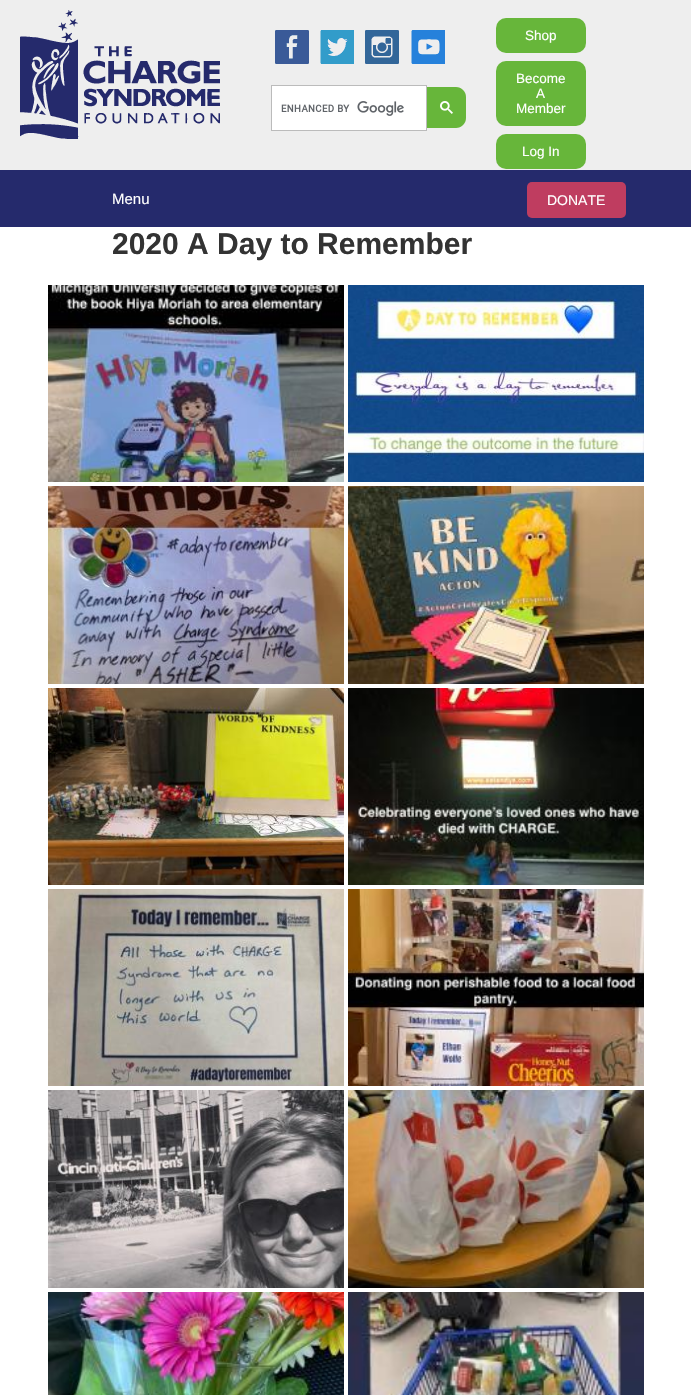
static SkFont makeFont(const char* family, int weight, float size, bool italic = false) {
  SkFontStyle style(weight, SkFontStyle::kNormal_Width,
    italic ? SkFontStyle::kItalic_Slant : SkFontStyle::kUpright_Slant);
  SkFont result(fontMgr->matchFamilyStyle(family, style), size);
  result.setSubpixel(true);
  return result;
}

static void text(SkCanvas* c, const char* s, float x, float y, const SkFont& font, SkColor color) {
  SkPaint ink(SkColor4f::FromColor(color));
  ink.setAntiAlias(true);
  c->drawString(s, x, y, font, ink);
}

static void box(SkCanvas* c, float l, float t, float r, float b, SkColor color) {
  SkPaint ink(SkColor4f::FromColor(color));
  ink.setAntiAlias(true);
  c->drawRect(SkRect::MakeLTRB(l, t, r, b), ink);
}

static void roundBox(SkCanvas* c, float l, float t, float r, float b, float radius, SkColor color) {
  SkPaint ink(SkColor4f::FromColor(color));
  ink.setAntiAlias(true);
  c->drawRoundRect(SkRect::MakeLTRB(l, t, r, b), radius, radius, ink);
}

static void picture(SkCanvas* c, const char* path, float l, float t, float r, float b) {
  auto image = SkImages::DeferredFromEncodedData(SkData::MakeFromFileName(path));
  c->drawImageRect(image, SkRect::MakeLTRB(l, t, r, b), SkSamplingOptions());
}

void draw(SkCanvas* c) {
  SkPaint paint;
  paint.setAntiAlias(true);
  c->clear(0xffeeeeee);
  picture(c, "img_01.png", 20, 10, 220, 139);
  picture(c, "img_02.png", 275, 30, 309, 64);
  picture(c, "img_03.png", 320, 30, 354, 64);
  picture(c, "img_04.png", 365, 30, 399, 64);
  picture(c, "img_05.png", 411, 30, 445, 64);
  paint.setColor(0xffffffff);
  c->drawRect(SkRect::MakeLTRB(271.5f, 85.5f, 426.5f, 130.5f), paint);
  paint.setStyle(SkPaint::kStroke_Style);
  paint.setStrokeWidth(1);
  paint.setColor(0xffbbbbbb);
  c->drawRect(SkRect::MakeLTRB(271.5f, 85.5f, 426.5f, 130.5f), paint);
  picture(c, "img_06.png", 281, 101, 404, 116);
  paint.setStyle(SkPaint::kFill_Style);
  paint.setColor(0xff67b63a);
  c->drawPath(SkPathBuilder().moveTo(427, 87).lineTo(456, 87).cubicTo(461.5f, 87, 466, 91.5f, 466, 97).lineTo(466, 118).cubicTo(466, 123.5f, 461.5f, 128, 456, 128).lineTo(427, 128).close().detach(), paint);
  picture(c, "img_07.png", 440, 101, 453, 114);
  roundBox(c, 496, 18, 586, 53, 10, 0xff67b63a);
  SkFont face1 = makeFont("Liberation Sans", 400, 13.5f);
  text(c, "Shop", 525, 40, face1, 0xffffffff);
  roundBox(c, 496, 61, 586, 126, 10, 0xff67b63a);
  text(c, "Become", 516, 83, face1, 0xffffffff);
  text(c, "A", 536, 98, face1, 0xffffffff);
  text(c, "Member", 516, 113, face1, 0xffffffff);
  roundBox(c, 496, 134, 586, 169, 10, 0xff67b63a);
  text(c, "Log In", 522, 156, face1, 0xffffffff);
  box(c, 0, 170, 691, 227, 0xff252a6c);
  SkFont face2 = makeFont("Liberation Sans", 400, 15);
  text(c, "Menu", 112, 204, face2, 0xffffffff);
  roundBox(c, 527, 182, 626, 218, 5, 0xffbf3d60);
  SkFont face3 = makeFont("Liberation Sans", 400, 14);
  text(c, "DONATE", 547, 205, face3, 0xffffffff);
  box(c, 0, 227, 691, 1395, 0xffffffff);
  SkFont face4 = makeFont("Liberation Sans", 700, 30);
  text(c, "2020 A Day to Remember", 112, 254, face4, 0xff333333);
  picture(c, "img_08.png", 48, 285, 344, 482);
  picture(c, "img_09.png", 348, 285, 644, 482);
  picture(c, "img_10.png", 48, 486, 344, 684);
  picture(c, "img_11.png", 348, 486, 644, 684);
  picture(c, "img_12.png", 48, 688, 344, 885);
  picture(c, "img_13.png", 348, 688, 644, 885);
  picture(c, "img_14.png", 48, 889, 344, 1086);
  picture(c, "img_15.png", 348, 889, 644, 1086);
  picture(c, "img_16.png", 48, 1090, 344, 1288);
  picture(c, "img_17.png", 348, 1090, 644, 1288);
  picture(c, "img_18.png", 48, 1292, 344, 1395);
  picture(c, "img_19.png", 348, 1292, 644, 1395);
}
